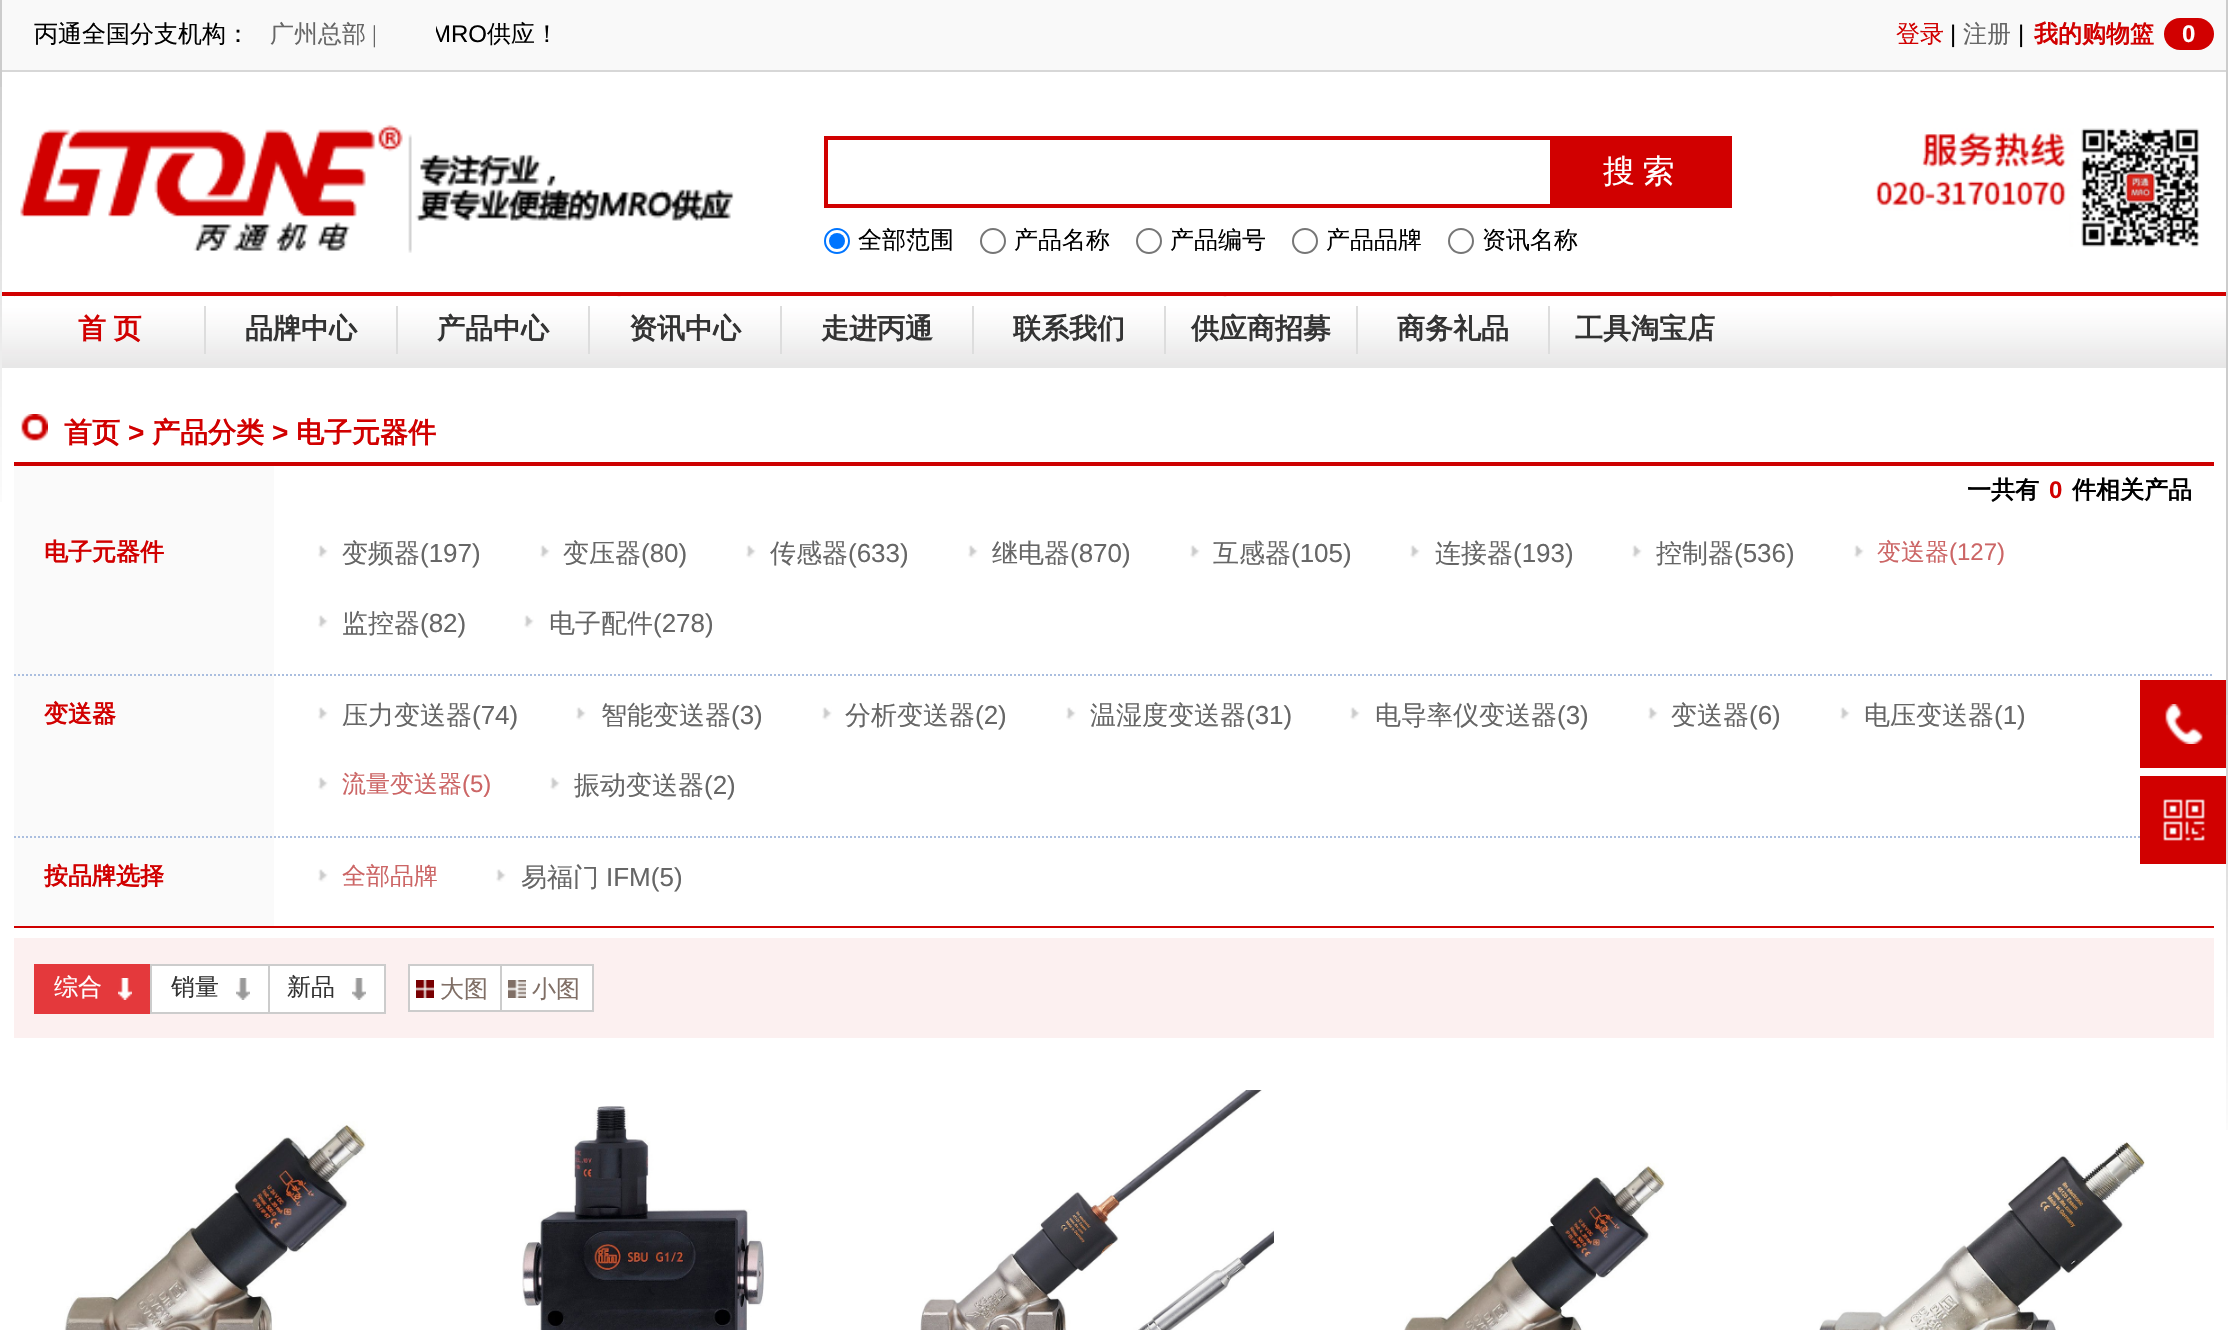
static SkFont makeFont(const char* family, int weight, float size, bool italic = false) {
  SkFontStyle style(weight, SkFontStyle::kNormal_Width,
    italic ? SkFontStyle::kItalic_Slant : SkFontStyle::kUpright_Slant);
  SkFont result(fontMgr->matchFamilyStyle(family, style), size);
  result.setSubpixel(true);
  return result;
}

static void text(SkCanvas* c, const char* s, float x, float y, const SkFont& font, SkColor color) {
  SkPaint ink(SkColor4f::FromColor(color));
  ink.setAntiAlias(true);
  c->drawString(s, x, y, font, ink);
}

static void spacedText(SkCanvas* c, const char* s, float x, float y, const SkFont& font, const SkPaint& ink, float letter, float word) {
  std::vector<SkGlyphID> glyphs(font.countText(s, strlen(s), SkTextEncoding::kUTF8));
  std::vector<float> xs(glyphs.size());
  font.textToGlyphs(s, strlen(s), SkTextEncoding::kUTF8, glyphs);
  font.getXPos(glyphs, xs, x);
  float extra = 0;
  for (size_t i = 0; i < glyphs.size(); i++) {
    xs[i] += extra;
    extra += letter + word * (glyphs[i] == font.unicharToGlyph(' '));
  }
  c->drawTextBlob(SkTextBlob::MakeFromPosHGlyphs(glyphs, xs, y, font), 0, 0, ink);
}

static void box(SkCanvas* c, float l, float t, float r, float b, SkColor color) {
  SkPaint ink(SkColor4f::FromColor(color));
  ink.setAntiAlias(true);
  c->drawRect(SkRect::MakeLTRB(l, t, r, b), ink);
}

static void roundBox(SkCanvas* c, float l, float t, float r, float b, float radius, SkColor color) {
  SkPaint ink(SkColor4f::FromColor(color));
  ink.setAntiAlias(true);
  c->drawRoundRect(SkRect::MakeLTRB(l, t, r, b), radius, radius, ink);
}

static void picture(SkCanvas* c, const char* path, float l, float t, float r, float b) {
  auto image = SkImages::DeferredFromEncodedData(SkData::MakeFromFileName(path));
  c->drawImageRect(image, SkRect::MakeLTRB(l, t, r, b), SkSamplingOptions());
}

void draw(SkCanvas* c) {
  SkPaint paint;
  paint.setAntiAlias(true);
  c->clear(0xffffffff);
  box(c, 2, 0, 2226, 70, 0xfff9f9f9);
  box(c, 0, 70, 2228, 72, 0xffd7d7d7);
  SkFont face1 = makeFont("WenQuanYi Zen Hei", 500, 24);
  text(c, "丙通全国分支机构：", 34, 42, face1, 0xff000000);
  text(c, "广州总部", 270, 42, face1, 0xff666666);
  SkFont face2 = makeFont("Liberation Serif", 400, 24);
  text(c, "|", 372, 42, face2, 0xff666666);
  c->save();
  c->clipRect(SkRect::MakeLTRB(436, 0, 1786, 70));
  SkFont face3 = makeFont("Liberation Sans", 400, 24);
  text(c, "MRO", 431, 42, face3, 0xff000000);
  c->restore();
  text(c, "供应！", 487, 42, face1, 0xff000000);
  text(c, "登录", 1896, 42, face1, 0xffd10000);
  text(c, "|", 1950, 42, face3, 0xff000000);
  text(c, "注册", 1963, 42, face1, 0xff666666);
  text(c, "|", 2018, 42, face3, 0xff000000);
  SkFont face4 = makeFont("WenQuanYi Zen Hei", 700, 24);
  text(c, "我的购物篮", 2034, 42, face4, 0xffd10000);
  roundBox(c, 2164, 18, 2214, 50, 16, 0xffd10000);
  SkFont face5 = makeFont("Liberation Sans", 700, 24);
  text(c, "0", 2182, 42, face5, 0xffffffff);
  picture(c, "img_01.png", 20, 124, 734, 253);
  paint.setStyle(SkPaint::kStroke_Style);
  paint.setStrokeWidth(4);
  paint.setColor(0xffd10000);
  c->drawRect(SkRect::MakeLTRB(826, 138, 1730, 206), paint);
  box(c, 1550, 140, 1728, 204, 0xffd10000);
  SkFont face6 = makeFont("WenQuanYi Zen Hei", 500, 32);
  paint.setStyle(SkPaint::kFill_Style);
  paint.setColor(0xffffffff);
  spacedText(c, "搜 索", 1603, 182, face6, paint, 0, -2);
  paint.setStyle(SkPaint::kStroke_Style);
  paint.setStrokeWidth(2);
  paint.setColor(0xff0075ff);
  c->drawCircle(837, 241, 12, paint);
  paint.setStyle(SkPaint::kFill_Style);
  c->drawCircle(837, 241, 8, paint);
  text(c, "全部范围", 858, 248, face1, 0xff000000);
  paint.setStyle(SkPaint::kStroke_Style);
  paint.setColor(0xff767676);
  c->drawCircle(993, 241, 12, paint);
  text(c, "产品名称", 1014, 248, face1, 0xff000000);
  c->drawCircle(1149, 241, 12, paint);
  text(c, "产品编号", 1170, 248, face1, 0xff000000);
  c->drawCircle(1305, 241, 12, paint);
  text(c, "产品品牌", 1326, 248, face1, 0xff000000);
  c->drawCircle(1461, 241, 12, paint);
  text(c, "资讯名称", 1482, 248, face1, 0xff000000);
  picture(c, "img_02.png", 1876, 128, 2200, 247);
  picture(c, "img_03.png", 2, 296, 2226, 368);
  box(c, 0, 292, 2228, 296, 0xffd10000);
  picture(c, "img_04.png", 14, 296, 1833, 297);
  SkFont face7 = makeFont("WenQuanYi Zen Hei", 700, 28);
  paint.setStyle(SkPaint::kFill_Style);
  paint.setColor(0xffd10000);
  spacedText(c, "首 页", 78, 338, face7, paint, 0, -1);
  box(c, 204, 306, 206, 354, 0xffdddddd);
  text(c, "品牌中心", 245, 338, face7, 0xff333333);
  box(c, 396, 306, 398, 354, 0xffdddddd);
  text(c, "产品中心", 437, 338, face7, 0xff333333);
  box(c, 588, 306, 590, 354, 0xffdddddd);
  text(c, "资讯中心", 629, 338, face7, 0xff333333);
  box(c, 780, 306, 782, 354, 0xffdddddd);
  text(c, "走进丙通", 821, 338, face7, 0xff333333);
  box(c, 972, 306, 974, 354, 0xffdddddd);
  text(c, "联系我们", 1013, 338, face7, 0xff333333);
  box(c, 1164, 306, 1166, 354, 0xffdddddd);
  text(c, "供应商招募", 1191, 338, face7, 0xff333333);
  box(c, 1356, 306, 1358, 354, 0xffdddddd);
  text(c, "商务礼品", 1397, 338, face7, 0xff333333);
  box(c, 1548, 306, 1550, 354, 0xffdddddd);
  text(c, "工具淘宝店", 1575, 338, face7, 0xff333333);
  box(c, 0, 0, 2, 87, 0xffcccccc);
  picture(c, "img_05.png", 0, 87, 2, 502);
  picture(c, "img_06.png", 21, 414, 48, 441);
  box(c, 14, 462, 2214, 466, 0xffcd0000);
  text(c, "首页", 64, 442, face7, 0xffd10000);
  SkFont face8 = makeFont("Liberation Sans", 700, 28);
  text(c, ">", 128, 442, face8, 0xffd10000);
  text(c, "产品分类", 152, 442, face7, 0xffd10000);
  text(c, ">", 272, 442, face8, 0xffd10000);
  text(c, "电子元器件", 296, 442, face7, 0xffd10000);
  box(c, 14, 466, 274, 926, 0xfffafafa);
  text(c, "一共有", 1967, 498, face4, 0xff000000);
  text(c, "0", 2049, 498, face5, 0xffd10000);
  text(c, "件相关产品", 2072, 498, face4, 0xff000000);
  text(c, "电子元器件", 44, 560, face4, 0xffd10000);
  picture(c, "img_07.png", 318, 545, 328, 558);
  SkFont face9 = makeFont("WenQuanYi Zen Hei", 500, 26);
  text(c, "变频器", 342, 562, face9, 0xff666666);
  SkFont face10 = makeFont("Liberation Sans", 400, 26);
  text(c, "(197)", 420, 562, face10, 0xff666666);
  picture(c, "img_07.png", 540, 545, 550, 558);
  text(c, "变压器", 563, 562, face9, 0xff666666);
  text(c, "(80)", 641, 562, face10, 0xff666666);
  picture(c, "img_07.png", 746, 545, 756, 558);
  text(c, "传感器", 770, 562, face9, 0xff666666);
  text(c, "(633)", 848, 562, face10, 0xff666666);
  picture(c, "img_07.png", 968, 545, 978, 558);
  text(c, "继电器", 992, 562, face9, 0xff666666);
  text(c, "(870)", 1070, 562, face10, 0xff666666);
  picture(c, "img_07.png", 1190, 545, 1200, 558);
  text(c, "互感器", 1213, 562, face9, 0xff666666);
  text(c, "(105)", 1291, 562, face10, 0xff666666);
  picture(c, "img_07.png", 1410, 545, 1420, 558);
  text(c, "连接器", 1435, 562, face9, 0xff666666);
  text(c, "(193)", 1513, 562, face10, 0xff666666);
  picture(c, "img_07.png", 1632, 545, 1642, 558);
  text(c, "控制器", 1656, 562, face9, 0xff666666);
  text(c, "(536)", 1734, 562, face10, 0xff666666);
  picture(c, "img_07.png", 1854, 545, 1864, 558);
  text(c, "变送器", 1877, 560, face1, 0xffcc6666);
  text(c, "(127)", 1949, 560, face3, 0xffcc6666);
  picture(c, "img_07.png", 318, 615, 328, 628);
  text(c, "监控器", 342, 632, face9, 0xff666666);
  text(c, "(82)", 420, 632, face10, 0xff666666);
  picture(c, "img_07.png", 524, 615, 534, 628);
  text(c, "电子配件", 549, 632, face9, 0xff666666);
  text(c, "(278)", 653, 632, face10, 0xff666666);
  paint.setStyle(SkPaint::kStroke_Style);
  paint.setColor(0xffaabedf);
  paint.setPathEffect(SkDashPathEffect::Make({{2, 2}}, 0));
  c->drawPath(SkPathBuilder().moveTo(14, 675).lineTo(2214, 675).detach(), paint);
  paint.setPathEffect(nullptr);
  text(c, "变送器", 44, 722, face4, 0xffd10000);
  picture(c, "img_07.png", 318, 707, 328, 720);
  text(c, "压力变送器", 342, 724, face9, 0xff666666);
  text(c, "(74)", 472, 724, face10, 0xff666666);
  picture(c, "img_07.png", 576, 707, 586, 720);
  text(c, "智能变送器", 601, 724, face9, 0xff666666);
  text(c, "(3)", 731, 724, face10, 0xff666666);
  picture(c, "img_07.png", 822, 707, 832, 720);
  text(c, "分析变送器", 845, 724, face9, 0xff666666);
  text(c, "(2)", 975, 724, face10, 0xff666666);
  picture(c, "img_07.png", 1066, 707, 1076, 720);
  text(c, "温湿度变送器", 1090, 724, face9, 0xff666666);
  text(c, "(31)", 1246, 724, face10, 0xff666666);
  picture(c, "img_07.png", 1350, 707, 1360, 720);
  text(c, "电导率仪变送器", 1375, 724, face9, 0xff666666);
  text(c, "(3)", 1557, 724, face10, 0xff666666);
  picture(c, "img_07.png", 1648, 707, 1658, 720);
  text(c, "变送器", 1671, 724, face9, 0xff666666);
  text(c, "(6)", 1749, 724, face10, 0xff666666);
  picture(c, "img_07.png", 1840, 707, 1850, 720);
  text(c, "电压变送器", 1864, 724, face9, 0xff666666);
  text(c, "(1)", 1994, 724, face10, 0xff666666);
  picture(c, "img_07.png", 318, 777, 328, 790);
  text(c, "流量变送器", 342, 792, face1, 0xffcc6666);
  text(c, "(5)", 462, 792, face3, 0xffcc6666);
  picture(c, "img_07.png", 550, 777, 560, 790);
  text(c, "振动变送器", 574, 794, face9, 0xff666666);
  text(c, "(2)", 704, 794, face10, 0xff666666);
  paint.setPathEffect(SkDashPathEffect::Make({{2, 2}}, 0));
  c->drawPath(SkPathBuilder().moveTo(14, 837).lineTo(2214, 837).detach(), paint);
  paint.setPathEffect(nullptr);
  text(c, "按品牌选择", 44, 884, face4, 0xffd10000);
  picture(c, "img_07.png", 318, 869, 328, 882);
  text(c, "全部品牌", 342, 884, face1, 0xffcc6666);
  picture(c, "img_07.png", 496, 869, 506, 882);
  text(c, "易福门", 521, 886, face9, 0xff666666);
  text(c, "IFM(5)", 606, 886, face10, 0xff666666);
  box(c, 14, 926, 2214, 928, 0xffcf0000);
  box(c, 2226, 0, 2228, 715, 0xffcccccc);
  picture(c, "img_05.png", 2226, 715, 2228, 1130);
  box(c, 14, 938, 2214, 1038, 0xfffcf0f0);
  box(c, 34, 964, 150, 1014, 0xffe4393c);
  text(c, "综合", 54, 995, face1, 0xffffffff);
  picture(c, "img_08.png", 118, 978, 132, 1000);
  paint.setStyle(SkPaint::kFill_Style);
  paint.setColor(0xffffffff);
  c->drawRect(SkRect::MakeLTRB(151, 965, 269, 1013), paint);
  paint.setStyle(SkPaint::kStroke_Style);
  paint.setColor(0xffcccccc);
  c->drawRect(SkRect::MakeLTRB(151, 965, 269, 1013), paint);
  text(c, "销量", 171, 995, face1, 0xff333333);
  picture(c, "img_09.png", 236, 978, 250, 1000);
  paint.setStyle(SkPaint::kFill_Style);
  paint.setColor(0xffffffff);
  c->drawRect(SkRect::MakeLTRB(269, 965, 385, 1013), paint);
  paint.setStyle(SkPaint::kStroke_Style);
  paint.setColor(0xffcccccc);
  c->drawRect(SkRect::MakeLTRB(269, 965, 385, 1013), paint);
  text(c, "新品", 287, 995, face1, 0xff333333);
  picture(c, "img_09.png", 352, 978, 366, 1000);
  paint.setStyle(SkPaint::kFill_Style);
  paint.setColor(0xffffffff);
  c->drawRect(SkRect::MakeLTRB(409, 965, 501, 1011), paint);
  paint.setStyle(SkPaint::kStroke_Style);
  paint.setColor(0xffcccccc);
  c->drawRect(SkRect::MakeLTRB(409, 965, 501, 1011), paint);
  picture(c, "img_10.png", 416, 980, 434, 998);
  text(c, "大图", 440, 997, face1, 0xff806f66);
  paint.setStyle(SkPaint::kFill_Style);
  paint.setColor(0xffffffff);
  c->drawRect(SkRect::MakeLTRB(501, 965, 593, 1011), paint);
  paint.setStyle(SkPaint::kStroke_Style);
  paint.setColor(0xffcccccc);
  c->drawRect(SkRect::MakeLTRB(501, 965, 593, 1011), paint);
  picture(c, "img_11.png", 508, 980, 526, 998);
  text(c, "小图", 532, 997, face1, 0xff806f66);
  picture(c, "img_12.png", 64, 1121, 366, 1330);
  picture(c, "img_13.png", 522, 1106, 764, 1330);
  picture(c, "img_14.png", 920, 1090, 1274, 1330);
  picture(c, "img_15.png", 1404, 1163, 1665, 1330);
  picture(c, "img_16.png", 1819, 1142, 2145, 1330);
  box(c, 2140, 680, 2226, 768, 0xffd10000);
  picture(c, "img_17.png", 2165, 704, 2203, 744);
  box(c, 2140, 776, 2226, 864, 0xffd10000);
  picture(c, "img_18.png", 2163, 799, 2205, 841);
}
